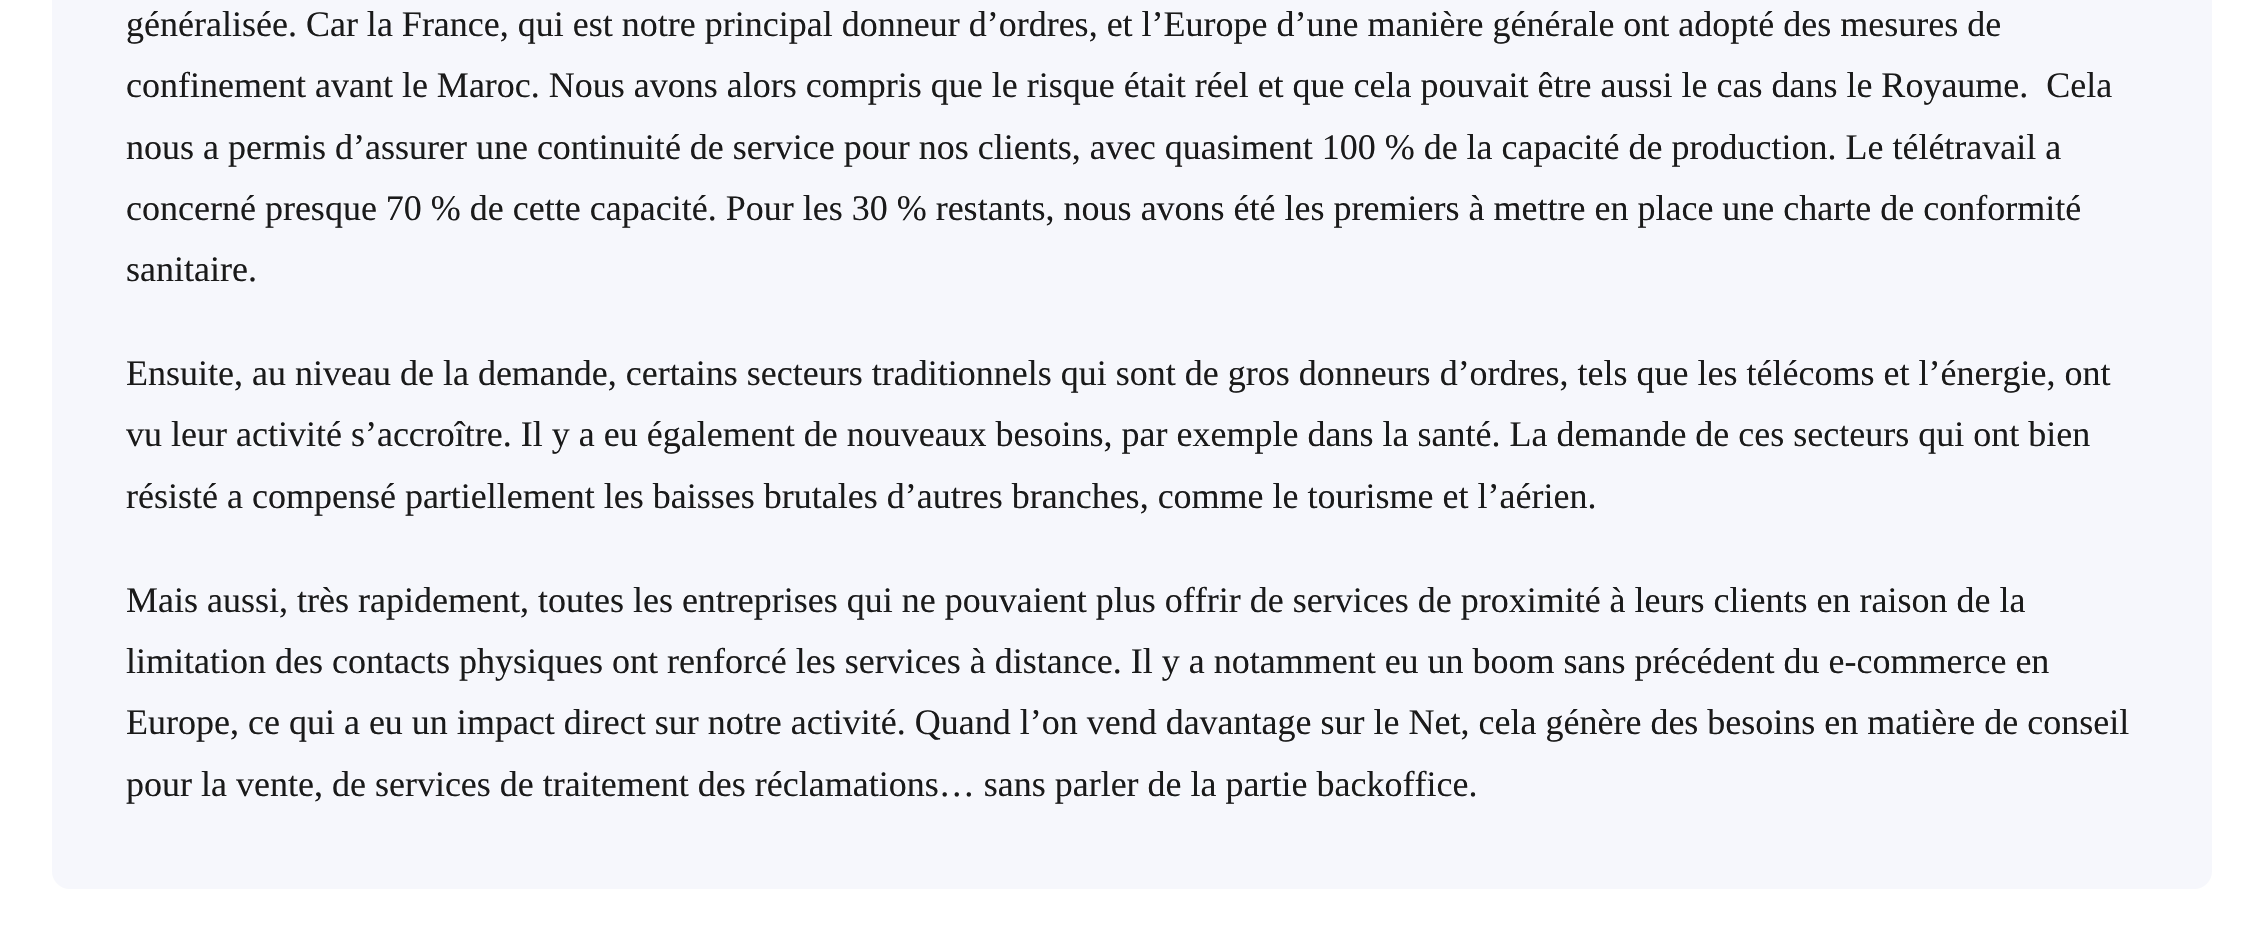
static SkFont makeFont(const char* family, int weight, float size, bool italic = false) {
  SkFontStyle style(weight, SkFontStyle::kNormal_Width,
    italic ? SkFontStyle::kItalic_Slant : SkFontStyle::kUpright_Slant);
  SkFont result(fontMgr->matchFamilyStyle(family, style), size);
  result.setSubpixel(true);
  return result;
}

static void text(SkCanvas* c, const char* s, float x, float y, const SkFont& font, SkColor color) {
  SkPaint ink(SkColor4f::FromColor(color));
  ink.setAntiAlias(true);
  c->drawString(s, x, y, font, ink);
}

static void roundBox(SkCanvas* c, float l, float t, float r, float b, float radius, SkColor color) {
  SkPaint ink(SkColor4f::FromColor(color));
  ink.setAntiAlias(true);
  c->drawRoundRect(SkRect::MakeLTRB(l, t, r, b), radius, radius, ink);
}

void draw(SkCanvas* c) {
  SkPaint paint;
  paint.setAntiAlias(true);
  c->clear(0xffffffff);
  roundBox(c, 52, -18, 2212, 889, 18, 0xfff6f7fc);
  SkFont face1 = makeFont("Liberation Serif", 400, 36);
  text(c, "généralisée. Car la France, qui est notre principal donneur d’ordres, et l’Europe d’une manière générale ont adopté des mesures de", 126, 36, face1, 0xff1a1a1a);
  text(c, "confinement avant le Maroc. Nous avons alors compris que le risque était réel et que cela pouvait être aussi le cas dans le Royaume.  Cela", 126, 97, face1, 0xff1a1a1a);
  text(c, "nous a permis d’assurer une continuité de service pour nos clients, avec quasiment 100 % de la capacité de production. Le télétravail a", 126, 159, face1, 0xff1a1a1a);
  text(c, "concerné presque 70 % de cette capacité. Pour les 30 % restants, nous avons été les premiers à mettre en place une charte de conformité", 126, 220, face1, 0xff1a1a1a);
  text(c, "sanitaire.", 126, 281, face1, 0xff1a1a1a);
  text(c, "Ensuite, au niveau de la demande, certains secteurs traditionnels qui sont de gros donneurs d’ordres, tels que les télécoms et l’énergie, ont", 126, 385, face1, 0xff1a1a1a);
  text(c, "vu leur activité s’accroître. Il y a eu également de nouveaux besoins, par exemple dans la santé. La demande de ces secteurs qui ont bien", 126, 446, face1, 0xff1a1a1a);
  text(c, "résisté a compensé partiellement les baisses brutales d’autres branches, comme le tourisme et l’aérien.", 126, 508, face1, 0xff1a1a1a);
  text(c, "Mais aussi, très rapidement, toutes les entreprises qui ne pouvaient plus offrir de services de proximité à leurs clients en raison de la", 126, 612, face1, 0xff1a1a1a);
  text(c, "limitation des contacts physiques ont renforcé les services à distance. Il y a notamment eu un boom sans précédent du e-commerce en", 126, 673, face1, 0xff1a1a1a);
  text(c, "Europe, ce qui a eu un impact direct sur notre activité. Quand l’on vend davantage sur le Net, cela génère des besoins en matière de conseil", 126, 734, face1, 0xff1a1a1a);
  text(c, "pour la vente, de services de traitement des réclamations… sans parler de la partie backoffice.", 126, 796, face1, 0xff1a1a1a);
}
